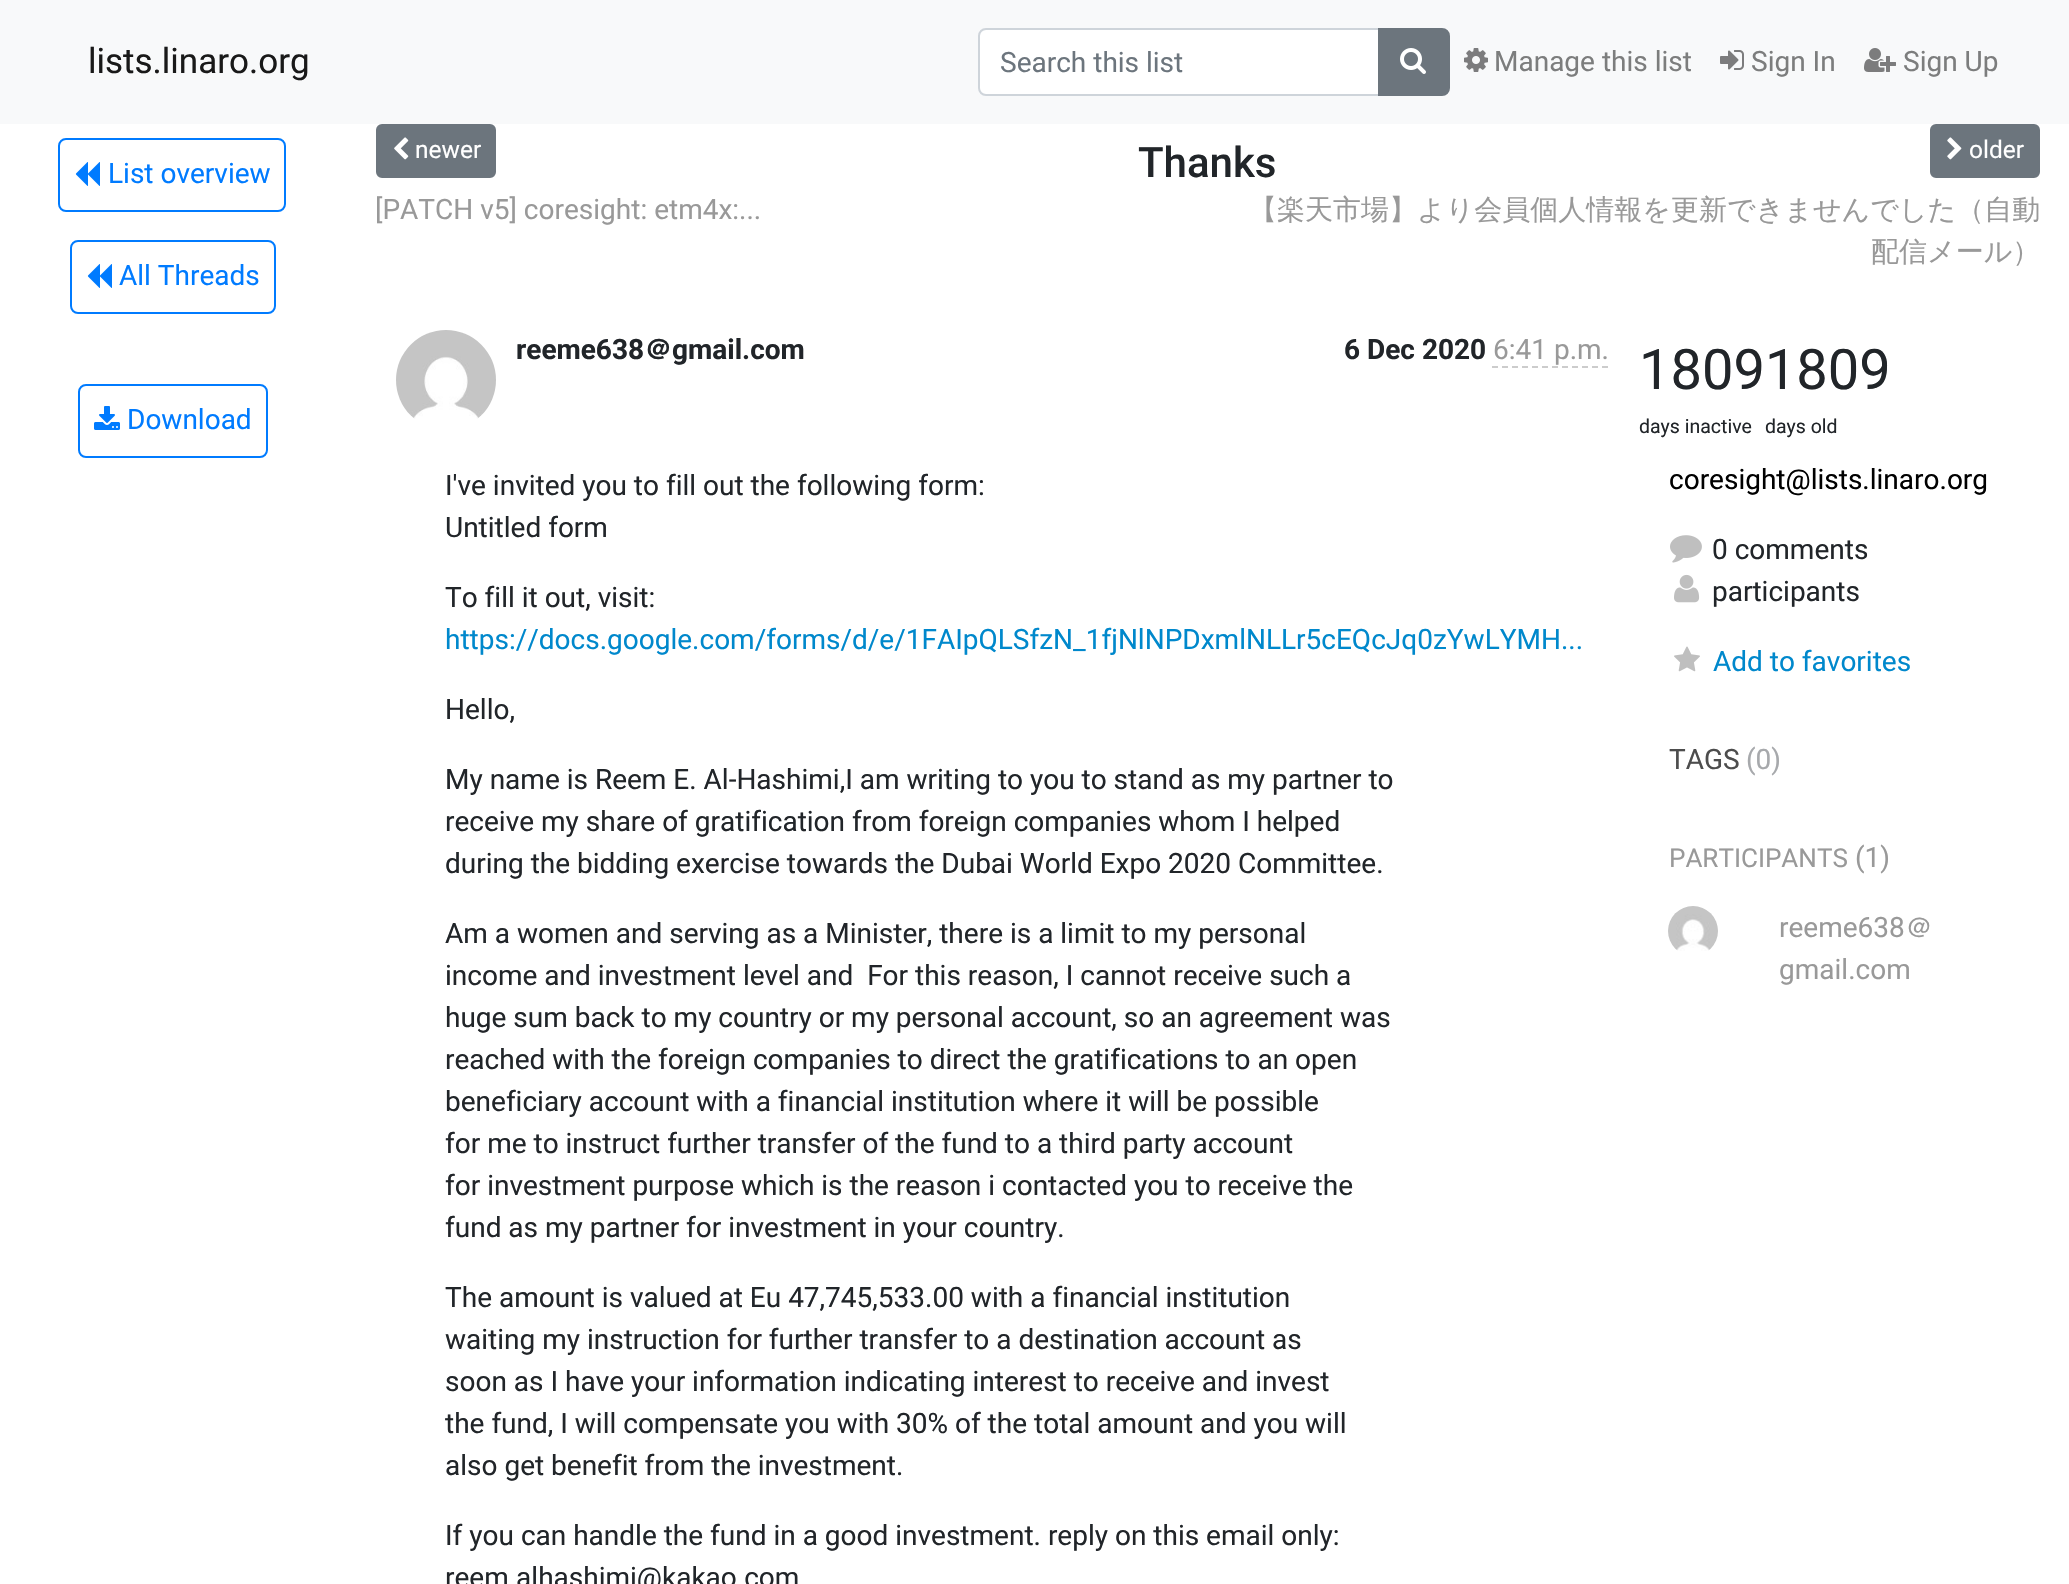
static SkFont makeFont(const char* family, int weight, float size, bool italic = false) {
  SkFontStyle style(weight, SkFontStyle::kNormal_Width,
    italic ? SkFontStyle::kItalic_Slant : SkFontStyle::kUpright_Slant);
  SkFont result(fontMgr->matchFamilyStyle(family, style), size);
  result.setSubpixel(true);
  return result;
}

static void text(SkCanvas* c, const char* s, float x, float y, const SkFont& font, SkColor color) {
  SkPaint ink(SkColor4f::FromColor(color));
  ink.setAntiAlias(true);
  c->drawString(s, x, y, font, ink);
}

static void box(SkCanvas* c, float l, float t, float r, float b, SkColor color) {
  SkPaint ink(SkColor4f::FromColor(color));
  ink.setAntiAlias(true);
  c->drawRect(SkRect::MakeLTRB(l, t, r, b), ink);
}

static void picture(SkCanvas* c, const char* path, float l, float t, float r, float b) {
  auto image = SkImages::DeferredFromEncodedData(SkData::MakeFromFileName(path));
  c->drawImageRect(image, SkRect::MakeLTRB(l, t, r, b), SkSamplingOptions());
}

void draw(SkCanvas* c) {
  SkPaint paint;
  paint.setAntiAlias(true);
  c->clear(0xffffffff);
  box(c, 0, 0, 2069, 124, 0xfff8f9fa);
  SkFont face1 = makeFont("Roboto", 400, 35);
  text(c, "lists.linaro.org", 88, 73, face1, 0xff191919);
  paint.setColor(0xffffffff);
  c->drawPath(SkPathBuilder().moveTo(985, 30).lineTo(1378, 30).lineTo(1378, 94).lineTo(985, 94).cubicTo(982, 94, 980, 92, 980, 89).lineTo(980, 35).cubicTo(980, 32, 982, 30, 985, 30).close().detach(), paint);
  paint.setStyle(SkPaint::kStroke_Style);
  paint.setStrokeWidth(2);
  paint.setColor(0xffced4da);
  c->drawPath(SkPathBuilder().moveTo(986, 29).lineTo(1379, 29).lineTo(1379, 95).lineTo(986, 95).cubicTo(982, 95, 979, 92, 979, 88).lineTo(979, 36).cubicTo(979, 32, 982, 29, 986, 29).close().detach(), paint);
  SkFont face2 = makeFont("Roboto", 400, 28);
  text(c, "Search this list", 1000, 72, face2, 0xff6c757d);
  paint.setStyle(SkPaint::kFill_Style);
  paint.setColor(0xff6c757d);
  c->drawPath(SkPathBuilder().moveTo(1379, 29).lineTo(1442, 29).cubicTo(1446, 29, 1449, 32, 1449, 36).lineTo(1449, 88).cubicTo(1449, 92, 1446, 95, 1442, 95).lineTo(1379, 95).close().detach(), paint);
  paint.setStyle(SkPaint::kStroke_Style);
  c->drawPath(SkPathBuilder().moveTo(1379, 29).lineTo(1442, 29).cubicTo(1446, 29, 1449, 32, 1449, 36).lineTo(1449, 88).cubicTo(1449, 92, 1446, 95, 1442, 95).lineTo(1379, 95).close().detach(), paint);
  picture(c, "img_01.png", 1400, 48, 1426, 74);
  picture(c, "img_02.png", 1464, 48, 1488, 72);
  text(c, "Manage this list", 1494, 71, face2, 0xff7c7d7d);
  picture(c, "img_03.png", 1720, 50, 1744, 70);
  text(c, "Sign In", 1751, 71, face2, 0xff7c7d7d);
  picture(c, "img_04.png", 1864, 48, 1896, 72);
  text(c, "Sign Up", 1903, 71, face2, 0xff7c7d7d);
  paint.setColor(0xff007bff);
  c->drawRoundRect(SkRect::MakeLTRB(59, 139, 285, 211), 7, 7, paint);
  picture(c, "img_05.png", 75, 162, 100, 186);
  text(c, "List overview", 108, 183, face2, 0xff007bff);
  c->drawRoundRect(SkRect::MakeLTRB(71, 241, 275, 313), 7, 7, paint);
  picture(c, "img_05.png", 87, 264, 112, 288);
  text(c, "All Threads", 119, 285, face2, 0xff007bff);
  c->drawRoundRect(SkRect::MakeLTRB(79, 385, 267, 457), 7, 7, paint);
  picture(c, "img_06.png", 94, 406, 120, 430);
  text(c, "Download", 127, 429, face2, 0xff007bff);
  paint.setStyle(SkPaint::kFill_Style);
  paint.setColor(0xff6c757d);
  c->drawRoundRect(SkRect::MakeLTRB(377, 125, 495, 177), 5, 5, paint);
  paint.setStyle(SkPaint::kStroke_Style);
  c->drawRoundRect(SkRect::MakeLTRB(377, 125, 495, 177), 5, 5, paint);
  picture(c, "img_07.png", 394, 137, 409, 160);
  SkFont face3 = makeFont("Roboto", 400, 24.5f);
  text(c, "newer", 415, 158, face3, 0xffffffff);
  SkFont face4 = makeFont("Roboto", 500, 42);
  text(c, "Thanks", 1138, 177, face4, 0xff212529);
  paint.setStyle(SkPaint::kFill_Style);
  c->drawRoundRect(SkRect::MakeLTRB(1931, 125, 2039, 177), 5, 5, paint);
  paint.setStyle(SkPaint::kStroke_Style);
  c->drawRoundRect(SkRect::MakeLTRB(1931, 125, 2039, 177), 5, 5, paint);
  picture(c, "img_08.png", 1947, 137, 1962, 160);
  text(c, "older", 1969, 158, face3, 0xffffffff);
  text(c, "[PATCH v5] coresight: etm4x:...", 375, 219, face2, 0xff999999);
  SkFont face5 = makeFont("WenQuanYi Zen Hei", 500, 28);
  text(c, "【楽天市場】より会員個人情報を更新できませんでした（自動", 1249, 219, face5, 0xff999999);
  text(c, "配信メール）", 1871, 261, face5, 0xff999999);
  picture(c, "img_09.png", 396, 330, 496, 419);
  SkFont face6 = makeFont("Roboto", 700, 28);
  text(c, "reeme638", 516, 359, face6, 0xff212529);
  SkFont face7 = makeFont("WenQuanYi Zen Hei", 700, 28);
  text(c, "＠", 644, 359, face7, 0xff212529);
  text(c, "gmail.com", 672, 359, face6, 0xff212529);
  text(c, "6 Dec 2020", 1344, 359, face6, 0xff212529);
  text(c, "6:41 p.m.", 1493, 359, face2, 0xff999999);
  paint.setColor(0xffcccccc);
  paint.setPathEffect(SkDashPathEffect::Make({{6, 4}}, 0));
  c->drawPath(SkPathBuilder().moveTo(1492, 367).lineTo(1608, 367).detach(), paint);
  paint.setPathEffect(nullptr);
  text(c, "I've invited you to fill out the following form:", 445, 495, face2, 0xff212529);
  text(c, "Untitled form", 445, 537, face2, 0xff212529);
  text(c, "To fill it out, visit:", 445, 607, face2, 0xff212529);
  text(c, "https://docs.google.com/forms/d/e/1FAIpQLSfzN_1fjNlNPDxmlNLLr5cEQcJq0zYwLYMH...", 445, 649, face2, 0xff0088cc);
  text(c, "Hello,", 445, 719, face2, 0xff212529);
  text(c, "My name is Reem E. Al-Hashimi,I am writing to you to stand as my partner to", 445, 789, face2, 0xff212529);
  text(c, "receive my share of gratification from foreign companies whom I helped", 445, 831, face2, 0xff212529);
  text(c, "during the bidding exercise towards the Dubai World Expo 2020 Committee.", 445, 873, face2, 0xff212529);
  text(c, "Am a women and serving as a Minister, there is a limit to my personal", 445, 943, face2, 0xff212529);
  text(c, "income and investment level and  For this reason, I cannot receive such a", 445, 985, face2, 0xff212529);
  text(c, "huge sum back to my country or my personal account, so an agreement was", 445, 1027, face2, 0xff212529);
  text(c, "reached with the foreign companies to direct the gratifications to an open", 445, 1069, face2, 0xff212529);
  text(c, "beneficiary account with a financial institution where it will be possible", 445, 1111, face2, 0xff212529);
  text(c, "for me to instruct further transfer of the fund to a third party account", 445, 1153, face2, 0xff212529);
  text(c, "for investment purpose which is the reason i contacted you to receive the", 445, 1195, face2, 0xff212529);
  text(c, "fund as my partner for investment in your country.", 445, 1237, face2, 0xff212529);
  text(c, "The amount is valued at Eu 47,745,533.00 with a financial institution", 445, 1307, face2, 0xff212529);
  text(c, "waiting my instruction for further transfer to a destination account as", 445, 1349, face2, 0xff212529);
  text(c, "soon as I have your information indicating interest to receive and invest", 445, 1391, face2, 0xff212529);
  text(c, "the fund, I will compensate you with 30% of the total amount and you will", 445, 1433, face2, 0xff212529);
  text(c, "also get benefit from the investment.", 445, 1475, face2, 0xff212529);
  text(c, "If you can handle the fund in a good investment. reply on this email only:", 445, 1545, face2, 0xff212529);
  text(c, "reem.alhashimi@kakao.com", 445, 1587, face2, 0xff212529);
  SkFont face8 = makeFont("Roboto", 400, 56);
  text(c, "18091809", 1639, 389, face8, 0xff212529);
  SkFont face9 = makeFont("Roboto", 400, 19.5f);
  text(c, "days inactive", 1639, 433, face9, 0xff212529);
  text(c, "days old", 1765, 433, face9, 0xff212529);
  text(c, "coresight@lists.linaro.org", 1669, 489, face2, 0xff000000);
  picture(c, "img_10.png", 1670, 535, 1702, 563);
  text(c, "0 comments", 1712, 559, face2, 0xff212529);
  picture(c, "img_11.png", 1674, 574, 1700, 603);
  text(c, "participants", 1712, 601, face2, 0xff212529);
  picture(c, "img_12.png", 1674, 646, 1700, 672);
  text(c, "Add to favorites", 1713, 671, face2, 0xff0088cc);
  text(c, "TAGS", 1669, 769, face2, 0xff4d4d4d);
  text(c, "(0)", 1746, 769, face2, 0xffa7a9ac);
  SkFont face10 = makeFont("Roboto", 400, 26);
  text(c, "PARTICIPANTS", 1669, 867, face10, 0xff999999);
  text(c, "(1)", 1855, 867, face2, 0xff999999);
  picture(c, "img_13.png", 1668, 906, 1718, 951);
  text(c, "reeme638", 1779, 937, face2, 0xff999999);
  text(c, "＠", 1905, 937, face5, 0xff999999);
  text(c, "gmail.com", 1779, 979, face2, 0xff999999);
}
